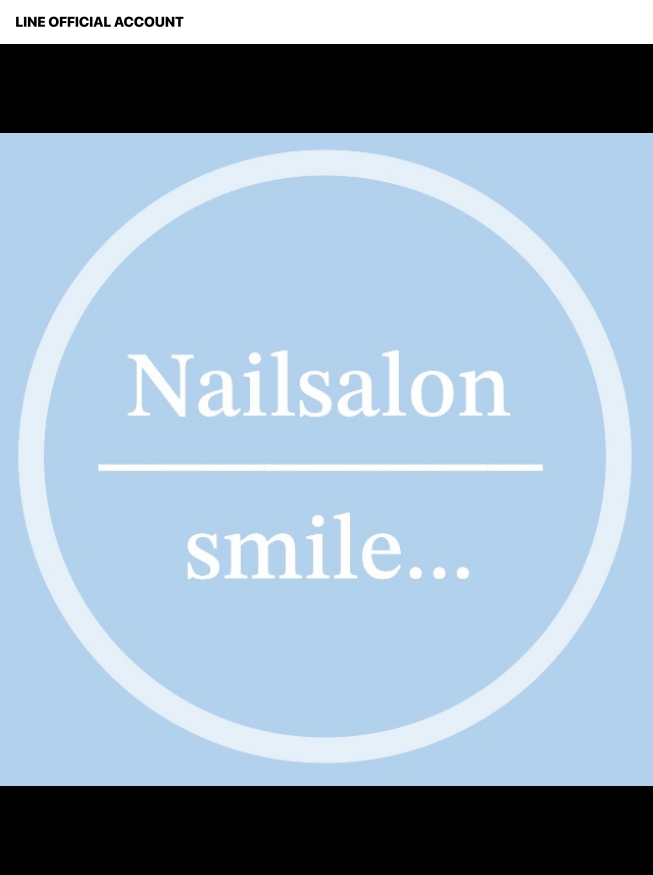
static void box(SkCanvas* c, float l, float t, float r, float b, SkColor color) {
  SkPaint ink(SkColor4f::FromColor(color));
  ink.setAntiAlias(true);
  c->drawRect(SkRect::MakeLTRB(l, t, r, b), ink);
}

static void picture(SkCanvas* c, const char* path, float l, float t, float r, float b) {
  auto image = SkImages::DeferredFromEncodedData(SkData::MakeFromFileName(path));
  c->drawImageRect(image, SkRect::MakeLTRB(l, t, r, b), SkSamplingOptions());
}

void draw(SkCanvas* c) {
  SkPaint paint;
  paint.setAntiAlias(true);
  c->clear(0xff000000);
  box(c, 0, 0, 653, 44, 0xffffffff);
  picture(c, "img_01.png", 16, 16, 184, 27);
  picture(c, "img_02.png", 0, 133, 653, 786);
}
